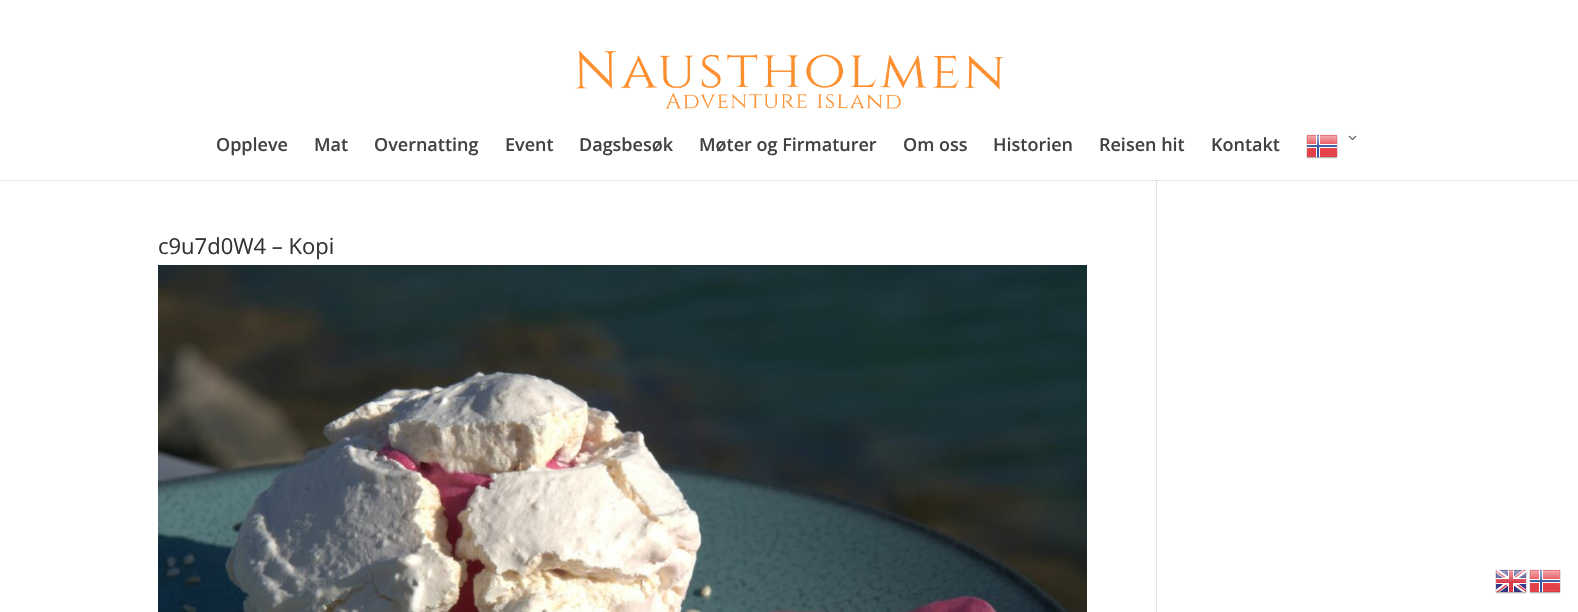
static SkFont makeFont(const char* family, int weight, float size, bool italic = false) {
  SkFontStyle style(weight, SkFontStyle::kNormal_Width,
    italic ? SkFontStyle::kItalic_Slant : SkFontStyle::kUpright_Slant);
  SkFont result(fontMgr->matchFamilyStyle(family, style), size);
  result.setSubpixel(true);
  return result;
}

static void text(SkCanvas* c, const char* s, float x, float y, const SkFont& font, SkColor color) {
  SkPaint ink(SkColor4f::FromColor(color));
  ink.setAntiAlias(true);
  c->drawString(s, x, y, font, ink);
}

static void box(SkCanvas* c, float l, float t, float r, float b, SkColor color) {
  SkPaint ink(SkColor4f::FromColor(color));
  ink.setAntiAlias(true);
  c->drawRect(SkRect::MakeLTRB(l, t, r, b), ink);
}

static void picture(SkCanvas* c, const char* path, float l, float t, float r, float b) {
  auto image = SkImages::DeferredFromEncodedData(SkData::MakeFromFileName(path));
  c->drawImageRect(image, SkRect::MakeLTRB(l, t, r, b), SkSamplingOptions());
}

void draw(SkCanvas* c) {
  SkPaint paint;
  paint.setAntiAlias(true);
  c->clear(0xffffffff);
  box(c, 0, 180, 1578, 181, 0xffe6e6e6);
  box(c, 1156, 179, 1157, 612, 0xffe2e2e2);
  box(c, 1156, 179, 1157, 180, 0xffffffff);
  picture(c, "img_01.png", 575, 50, 1004, 109);
  SkFont face1 = makeFont("Open Sans", 600, 18);
  text(c, "Oppleve", 216, 151, face1, 0xff424242);
  text(c, "Mat", 314, 151, face1, 0xff424242);
  text(c, "Overnatting", 374, 151, face1, 0xff424242);
  text(c, "Event", 505, 151, face1, 0xff424242);
  text(c, "Dagsbesøk", 579, 151, face1, 0xff424242);
  text(c, "Møter og Firmaturer", 699, 151, face1, 0xff424242);
  text(c, "Om oss", 903, 151, face1, 0xff424242);
  text(c, "Historien", 993, 151, face1, 0xff424242);
  text(c, "Reisen hit", 1099, 151, face1, 0xff424242);
  text(c, "Kontakt", 1211, 151, face1, 0xff424242);
  picture(c, "img_02.png", 1306, 134, 1338, 159);
  picture(c, "img_03.png", 1348, 135, 1357, 140);
  SkFont face2 = makeFont("Open Sans", 400, 22);
  text(c, "c9u7d0W4 – Kopi", 158, 254, face2, 0xff333333);
  picture(c, "img_04.png", 158, 265, 1087, 612);
  box(c, 1156, 180, 1157, 181, 0xffcbcbcb);
  picture(c, "img_05.png", 1495, 569, 1527, 594);
  picture(c, "img_02.png", 1529, 569, 1561, 594);
}
